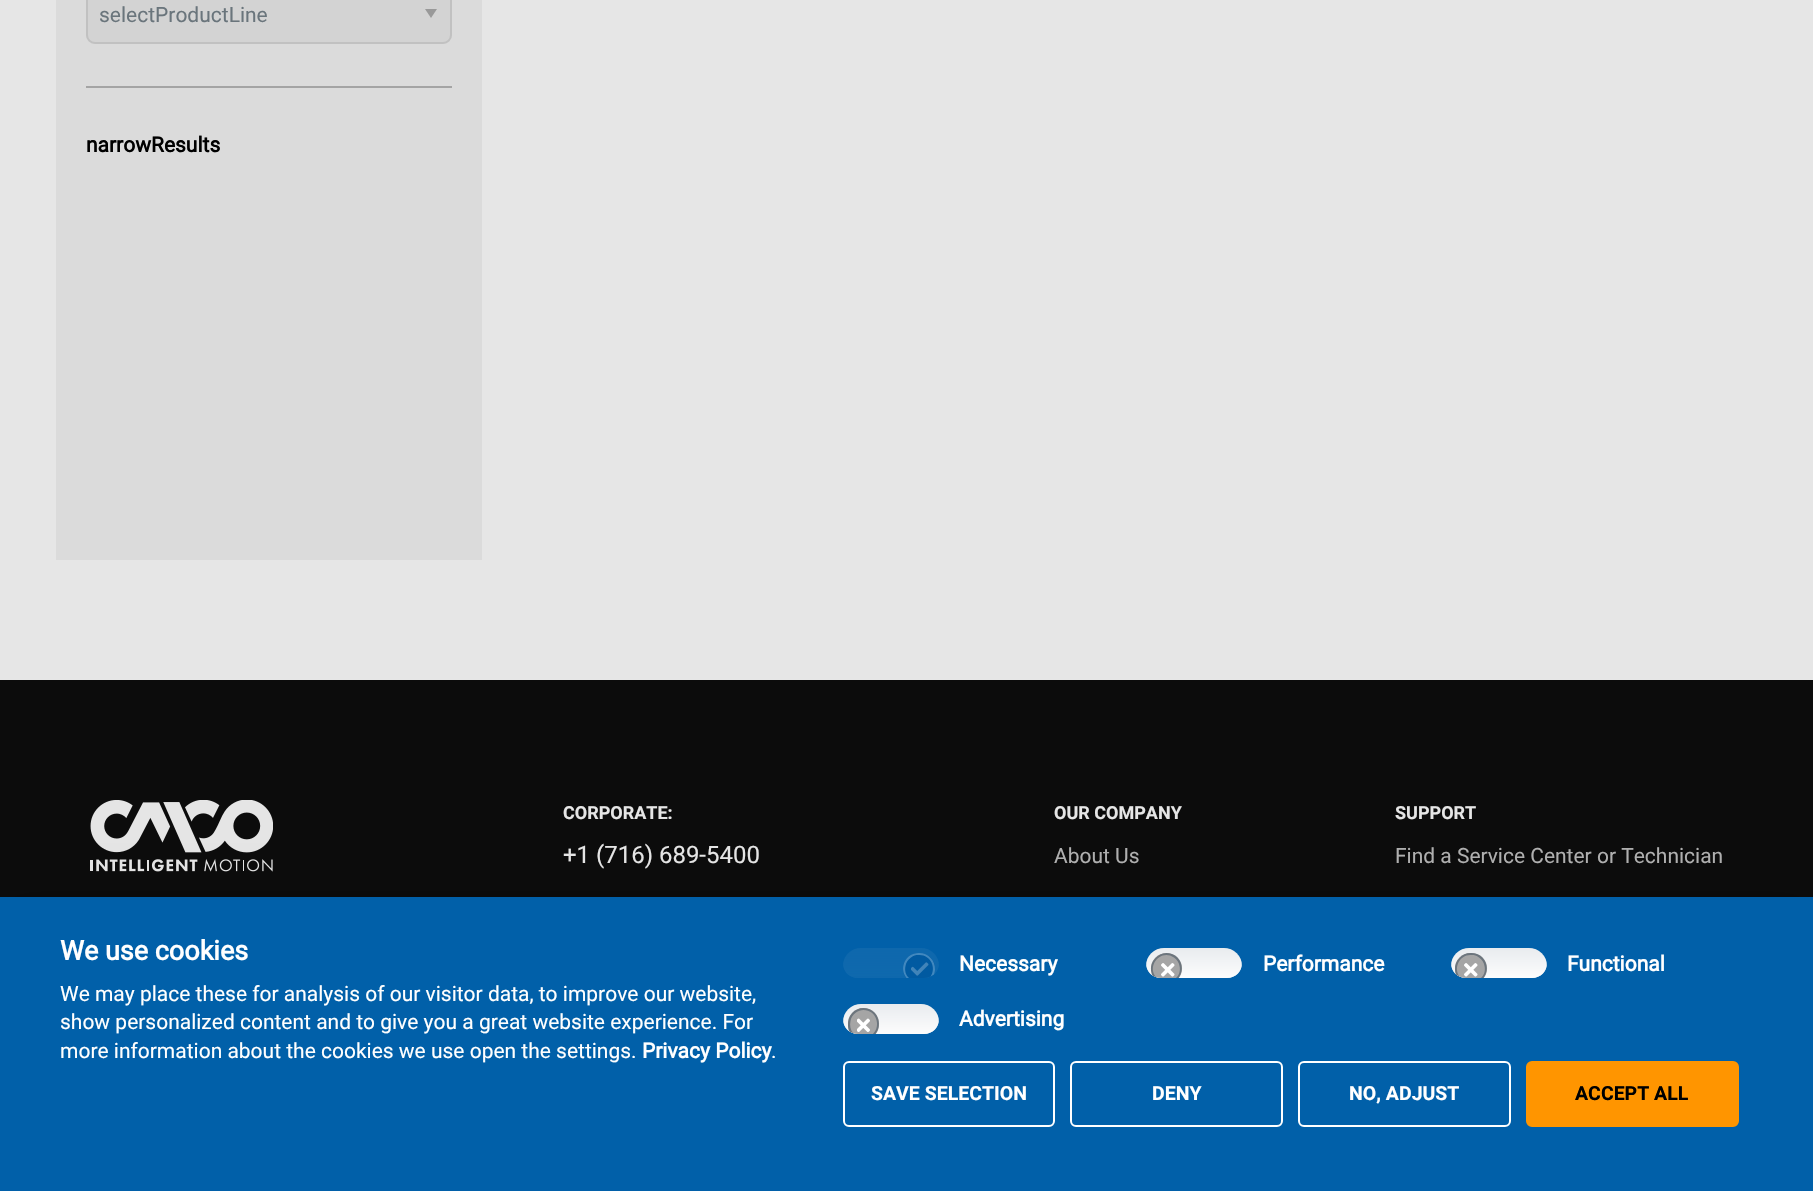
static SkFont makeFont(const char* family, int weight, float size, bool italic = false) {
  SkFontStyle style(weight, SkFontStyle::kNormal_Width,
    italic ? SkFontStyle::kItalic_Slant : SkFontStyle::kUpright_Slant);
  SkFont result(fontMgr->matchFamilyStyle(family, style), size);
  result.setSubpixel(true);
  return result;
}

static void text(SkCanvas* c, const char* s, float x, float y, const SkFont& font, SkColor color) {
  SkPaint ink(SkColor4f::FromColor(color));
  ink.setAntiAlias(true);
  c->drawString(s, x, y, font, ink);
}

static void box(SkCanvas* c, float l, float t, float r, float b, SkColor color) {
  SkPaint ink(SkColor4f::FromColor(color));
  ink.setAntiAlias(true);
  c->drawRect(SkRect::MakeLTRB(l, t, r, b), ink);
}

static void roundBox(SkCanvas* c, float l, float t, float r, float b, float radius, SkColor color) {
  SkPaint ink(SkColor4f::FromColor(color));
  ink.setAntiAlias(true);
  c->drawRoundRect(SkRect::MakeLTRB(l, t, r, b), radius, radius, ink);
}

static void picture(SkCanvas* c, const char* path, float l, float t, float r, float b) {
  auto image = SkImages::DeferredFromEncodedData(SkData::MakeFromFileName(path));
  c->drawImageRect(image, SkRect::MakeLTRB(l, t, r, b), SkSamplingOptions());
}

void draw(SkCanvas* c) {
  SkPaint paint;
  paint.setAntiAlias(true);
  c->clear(0xffe6e6e6);
  box(c, 56, 0, 482, 560, 0xffdbdbdb);
  box(c, 86, 86, 452, 88, 0xffa4a4a4);
  roundBox(c, 86, -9, 452, 44, 9, 0xffd3d3d3);
  paint.setColor(0xff999999);
  c->drawPath(SkPathBuilder().moveTo(425, 9).lineTo(437, 9).lineTo(431, 18).close().detach(), paint);
  paint.setStyle(SkPaint::kStroke_Style);
  paint.setStrokeWidth(2);
  paint.setColor(0xffc1c1c1);
  c->drawRoundRect(SkRect::MakeLTRB(87, -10, 451, 43), 8, 8, paint);
  SkFont face1 = makeFont("Roboto", 400, 21);
  text(c, "selectProductLine", 99, 22, face1, 0xff6a757c);
  SkFont face2 = makeFont("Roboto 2", 700, 21);
  text(c, "narrowResults", 86, 152, face2, 0xff000000);
  box(c, 0, 680, 1813, 897, 0xff0c0c0c);
  picture(c, "img_01.png", 90, 800, 273, 872);
  SkFont face3 = makeFont("Roboto", 700, 18);
  text(c, "CORPORATE:", 563, 819, face3, 0xffe6e6e6);
  SkFont face4 = makeFont("Roboto", 400, 24);
  text(c, "+1 (716) 689-5400", 563, 863, face4, 0xffe6e6e6);
  text(c, "OUR COMPANY", 1054, 819, face3, 0xffe6e6e6);
  text(c, "About Us", 1054, 863, face1, 0xffb0b0b0);
  text(c, "SUPPORT", 1395, 819, face3, 0xffe6e6e6);
  text(c, "Find a Service Center or Technician", 1395, 863, face1, 0xffb0b0b0);
  paint.setStyle(SkPaint::kFill_Style);
  paint.setColor(0x1a000000);
  paint.setMaskFilter(SkMaskFilter::MakeBlur(kNormal_SkBlurStyle, 18));
  c->drawRect(SkRect::MakeLTRB(0, 897, 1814, 1191), paint);
  paint.setMaskFilter(nullptr);
  box(c, 0, 897, 1813, 1191, 0xff0160a9);
  SkFont face5 = makeFont("Roboto 2", 700, 27);
  text(c, "We use cookies", 60, 960, face5, 0xffffffff);
  text(c, "We may place these for analysis of our visitor data, to improve our website,", 60, 1001, face1, 0xffffffff);
  text(c, "show personalized content and to give you a great website experience. For", 60, 1029, face1, 0xffffffff);
  text(c, "more information about the cookies we use open the settings.", 60, 1058, face1, 0xffffffff);
  text(c, "Privacy Policy", 642, 1058, face2, 0xffffffff);
  text(c, ".", 771, 1058, face1, 0xffffffff);
  c->save();
  c->clipPath(SkPathBuilder().moveTo(858, 948).lineTo(924, 948).cubicTo(932.5f, 948, 939, 954.5f, 939, 963).cubicTo(939, 971.5f, 932.5f, 978, 924, 978).lineTo(858, 978).cubicTo(849.5f, 978, 843, 971.5f, 843, 963).cubicTo(843, 954.5f, 849.5f, 948, 858, 948).close().detach(), true);
  roundBox(c, 843, 948, 939, 987, 18, 0xff0e68ad);
  {
    const SkColor colors[] = {0x000e68ad, 0xff0e68ad};
    const float stops[] = {0, 0.9f};
    const SkPoint ends[] = {{891, 948}, {891, 987}};
    paint.setShader(SkGradientShader::MakeLinear(ends, colors, stops, 2, SkTileMode::kClamp));
    paint.setAlpha(255);
  }
  c->drawRoundRect(SkRect::MakeLTRB(843, 948, 939, 987), 18, 18, paint);
  roundBox(c, 903, 953, 935, 984, 15.5f, 0xff015aa1);
  c->restore();
  picture(c, "img_02.png", 911, 962, 929, 976);
  paint.setShader(nullptr);
  paint.setColor(0xff4188bf);
  c->drawPath(SkPathBuilder().moveTo(918.5f, 953).cubicTo(905.5f, 953, 898.5f, 968, 906.5f, 978).lineTo(909, 978).cubicTo(905.5f, 975, 904.5f, 970, 905.5f, 966).cubicTo(906, 962.5f, 908, 959.5f, 911, 957.5f).cubicTo(913.5f, 955.5f, 915.5f, 955, 918.5f, 955).cubicTo(930, 954, 937, 967.5f, 930.5f, 976.5f).lineTo(934, 974.5f).cubicTo(934.5f, 973, 935, 971, 935, 969.5f).cubicTo(935.5f, 960.5f, 928, 953, 919.5f, 953).close().detach(), paint);
  text(c, "Necessary", 959, 971, face2, 0xffffffff);
  c->save();
  c->clipPath(SkPathBuilder().moveTo(1161, 948).lineTo(1227, 948).cubicTo(1235.5f, 948, 1242, 954.5f, 1242, 963).cubicTo(1242, 971.5f, 1235.5f, 978, 1227, 978).lineTo(1161, 978).cubicTo(1152.5f, 978, 1146, 971.5f, 1146, 963).cubicTo(1146, 954.5f, 1152.5f, 948, 1161, 948).close().detach(), true);
  roundBox(c, 1146, 948, 1242, 987, 18, 0xffe9ecef);
  {
    const SkColor colors[] = {0x00ffffff, 0xffffffff};
    const float stops[] = {0, 0.9f};
    const SkPoint ends[] = {{1194, 948}, {1194, 987}};
    paint.setShader(SkGradientShader::MakeLinear(ends, colors, stops, 2, SkTileMode::kClamp));
    paint.setAlpha(255);
  }
  c->drawRoundRect(SkRect::MakeLTRB(1146, 948, 1242, 987), 18, 18, paint);
  paint.setShader(nullptr);
  paint.setColor(0xffa5a5a5);
  c->drawCircle(1166.5f, 968.5f, 15.5f, paint);
  c->restore();
  picture(c, "img_03.png", 1161, 963, 1175, 977);
  paint.setColor(0xff6c757d);
  c->drawPath(SkPathBuilder().moveTo(1166.5f, 953).cubicTo(1157.5f, 953, 1150, 961.5f, 1151, 970.5f).cubicTo(1151.5f, 972, 1151.5f, 974, 1152.5f, 975.5f).lineTo(1156, 977).cubicTo(1146.5f, 965.5f, 1161, 948.5f, 1174, 957.5f).cubicTo(1177, 959.5f, 1179, 962.5f, 1179.5f, 966).cubicTo(1180.5f, 970, 1179.5f, 975, 1176, 978).lineTo(1178.5f, 978).cubicTo(1186.5f, 968, 1179.5f, 953, 1166.5f, 953).close().detach(), paint);
  text(c, "Performance", 1263, 971, face2, 0xffffffff);
  c->save();
  c->clipPath(SkPathBuilder().moveTo(1466, 948).lineTo(1532, 948).cubicTo(1540.5f, 948, 1547, 954.5f, 1547, 963).cubicTo(1547, 971.5f, 1540.5f, 978, 1532, 978).lineTo(1466, 978).cubicTo(1457.5f, 978, 1451, 971.5f, 1451, 963).cubicTo(1451, 954.5f, 1457.5f, 948, 1466, 948).close().detach(), true);
  roundBox(c, 1451, 948, 1547, 987, 18, 0xffe9ecef);
  {
    const SkColor colors[] = {0x00ffffff, 0xffffffff};
    const float stops[] = {0, 0.9f};
    const SkPoint ends[] = {{1499, 948}, {1499, 987}};
    paint.setShader(SkGradientShader::MakeLinear(ends, colors, stops, 2, SkTileMode::kClamp));
    paint.setAlpha(255);
  }
  c->drawRoundRect(SkRect::MakeLTRB(1451, 948, 1547, 987), 18, 18, paint);
  roundBox(c, 1455, 953, 1487, 984, 15.5f, 0xffa5a5a5);
  c->restore();
  picture(c, "img_03.png", 1464, 963, 1478, 977);
  paint.setShader(nullptr);
  paint.setColor(0xff6c757d);
  c->drawPath(SkPathBuilder().moveTo(1470.5f, 953).cubicTo(1462, 953, 1454.5f, 960.5f, 1455, 969.5f).cubicTo(1455, 971, 1455.5f, 973, 1456, 974.5f).lineTo(1459.5f, 976.5f).cubicTo(1453, 967.5f, 1460, 954, 1471.5f, 955).cubicTo(1474.5f, 955, 1476.5f, 955.5f, 1479, 957.5f).cubicTo(1482, 959.5f, 1484, 962.5f, 1484.5f, 966).cubicTo(1485.5f, 970, 1484.5f, 975, 1481, 978).lineTo(1483.5f, 978).cubicTo(1491.5f, 968, 1484.5f, 953, 1471.5f, 953).close().detach(), paint);
  text(c, "Functional", 1567, 971, face2, 0xffffffff);
  c->save();
  c->clipPath(SkPathBuilder().moveTo(858, 1004).lineTo(924, 1004).cubicTo(932.5f, 1004, 939, 1010.5f, 939, 1019).cubicTo(939, 1027.5f, 932.5f, 1034, 924, 1034).lineTo(858, 1034).cubicTo(849.5f, 1034, 843, 1027.5f, 843, 1019).cubicTo(843, 1010.5f, 849.5f, 1004, 858, 1004).close().detach(), true);
  roundBox(c, 843, 1004, 939, 1043, 18, 0xffe9ecef);
  {
    const SkColor colors[] = {0x00ffffff, 0xffffffff};
    const float stops[] = {0, 0.9f};
    const SkPoint ends[] = {{891, 1004}, {891, 1043}};
    paint.setShader(SkGradientShader::MakeLinear(ends, colors, stops, 2, SkTileMode::kClamp));
    paint.setAlpha(255);
  }
  c->drawRoundRect(SkRect::MakeLTRB(843, 1004, 939, 1043), 18, 18, paint);
  roundBox(c, 848, 1008, 879, 1040, 15.5f, 0xffa5a5a5);
  c->restore();
  picture(c, "img_04.png", 857, 1018, 870, 1032);
  paint.setShader(nullptr);
  paint.setColor(0xff6c757d);
  c->drawPath(SkPathBuilder().moveTo(863.5f, 1008).cubicTo(854, 1008, 847.5f, 1016, 848, 1025.5f).cubicTo(848, 1027.5f, 848.5f, 1030, 849.5f, 1031.5f).lineTo(853, 1033).cubicTo(850.5f, 1030, 849.5f, 1025, 850.5f, 1021).cubicTo(851, 1017.5f, 853, 1014.5f, 856, 1012.5f).cubicTo(858, 1011, 861, 1010, 863.5f, 1010).cubicTo(876, 1010, 881.5f, 1025.5f, 873, 1034).lineTo(875.5f, 1034).cubicTo(883.5f, 1024, 877, 1008, 863.5f, 1008).close().detach(), paint);
  text(c, "Advertising", 959, 1026, face2, 0xffffffff);
  paint.setStyle(SkPaint::kStroke_Style);
  paint.setColor(0xffffffff);
  c->drawRoundRect(SkRect::MakeLTRB(844, 1062, 1054, 1126), 5, 5, paint);
  SkFont face6 = makeFont("Roboto", 700, 19.5f);
  text(c, "SAVE SELECTION", 871, 1100, face6, 0xffffffff);
  c->drawRoundRect(SkRect::MakeLTRB(1071, 1062, 1282, 1126), 5, 5, paint);
  text(c, "DENY", 1152, 1100, face6, 0xffffffff);
  c->drawRoundRect(SkRect::MakeLTRB(1299, 1062, 1510, 1126), 5, 5, paint);
  text(c, "NO, ADJUST", 1349, 1100, face6, 0xffffffff);
  paint.setStyle(SkPaint::kFill_Style);
  paint.setColor(0xffff9500);
  c->drawRoundRect(SkRect::MakeLTRB(1527, 1062, 1738, 1126), 5, 5, paint);
  paint.setStyle(SkPaint::kStroke_Style);
  c->drawRoundRect(SkRect::MakeLTRB(1527, 1062, 1738, 1126), 5, 5, paint);
  text(c, "ACCEPT ALL", 1575, 1100, face6, 0xff000000);
}
